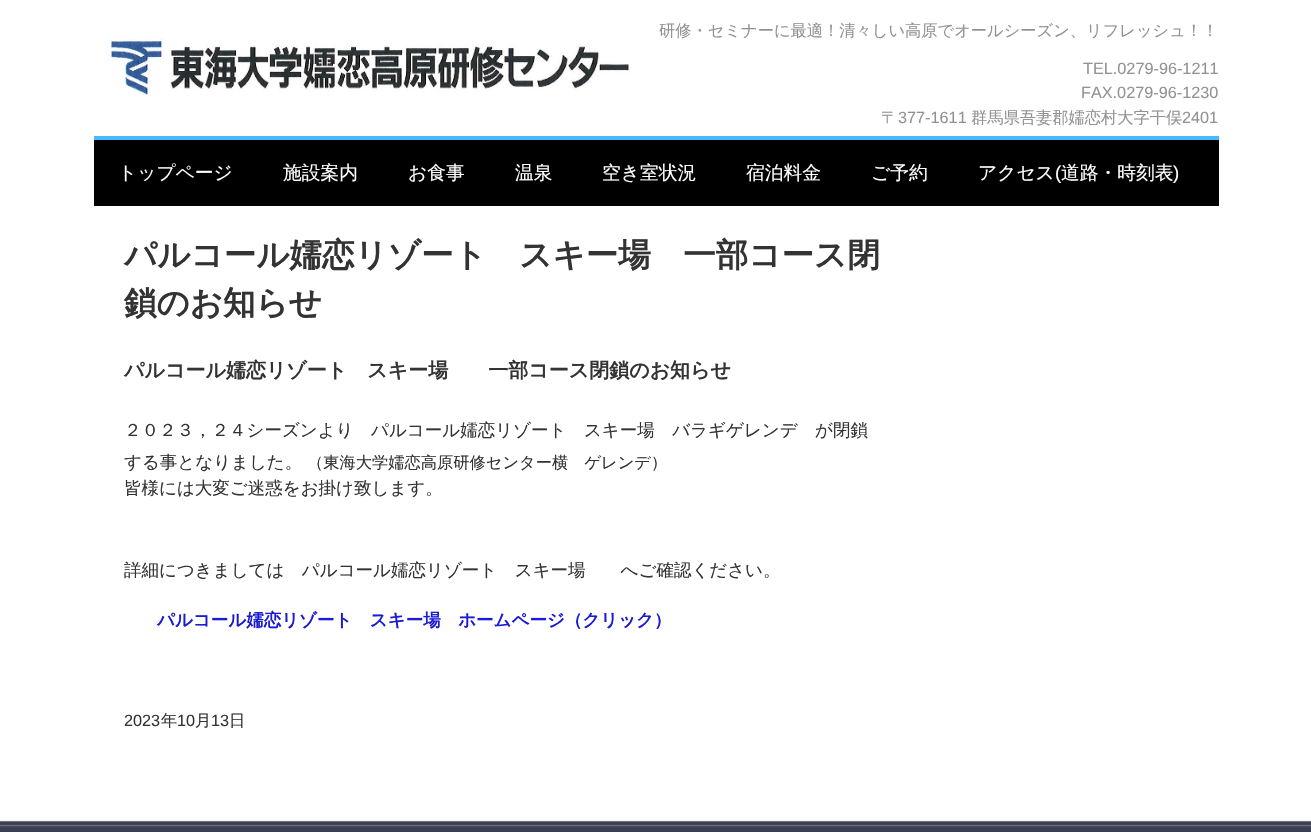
static SkFont makeFont(const char* family, int weight, float size, bool italic = false) {
  SkFontStyle style(weight, SkFontStyle::kNormal_Width,
    italic ? SkFontStyle::kItalic_Slant : SkFontStyle::kUpright_Slant);
  SkFont result(fontMgr->matchFamilyStyle(family, style), size);
  result.setSubpixel(true);
  return result;
}

static void text(SkCanvas* c, const char* s, float x, float y, const SkFont& font, SkColor color) {
  SkPaint ink(SkColor4f::FromColor(color));
  ink.setAntiAlias(true);
  c->drawString(s, x, y, font, ink);
}

static void box(SkCanvas* c, float l, float t, float r, float b, SkColor color) {
  SkPaint ink(SkColor4f::FromColor(color));
  ink.setAntiAlias(true);
  c->drawRect(SkRect::MakeLTRB(l, t, r, b), ink);
}

static void picture(SkCanvas* c, const char* path, float l, float t, float r, float b) {
  auto image = SkImages::DeferredFromEncodedData(SkData::MakeFromFileName(path));
  c->drawImageRect(image, SkRect::MakeLTRB(l, t, r, b), SkSamplingOptions());
}

void draw(SkCanvas* c) {
  SkPaint paint;
  paint.setAntiAlias(true);
  c->clear(0xffffffff);
  picture(c, "img_01.png", 107, 38, 629, 95);
  SkFont face1 = makeFont("WenQuanYi Zen Hei", 500, 16.25f);
  text(c, "研修・セミナーに最適！清々しい高原でオールシーズン、リフレッシュ！！", 659, 36, face1, 0xff929292);
  SkFont face2 = makeFont("Liberation Sans", 400, 16.25f);
  text(c, "TEL.0279-96-1211", 1083, 74, face2, 0xff929292);
  text(c, "FAX.0279-96-1230", 1081, 98, face2, 0xff929292);
  text(c, "〒", 881, 123, face1, 0xff929292);
  text(c, "377-1611", 898, 123, face2, 0xff929292);
  text(c, "群馬県吾妻郡嬬恋村大字干俣", 971, 123, face1, 0xff929292);
  text(c, "2401", 1182, 123, face2, 0xff929292);
  box(c, 94, 140, 1219, 206, 0xff000000);
  box(c, 94, 136, 1219, 140, 0xff49b8ff);
  SkFont face3 = makeFont("WenQuanYi Zen Hei", 500, 18.75f);
  text(c, "トップページ", 118, 179, face3, 0xffffffff);
  text(c, "施設案内", 283, 179, face3, 0xffffffff);
  text(c, "お食事", 408, 179, face3, 0xffffffff);
  text(c, "温泉", 515, 179, face3, 0xffffffff);
  text(c, "空き室状況", 602, 179, face3, 0xffffffff);
  text(c, "宿泊料金", 746, 179, face3, 0xffffffff);
  text(c, "ご予約", 871, 179, face3, 0xffffffff);
  text(c, "アクセス", 978, 179, face3, 0xffffffff);
  SkFont face4 = makeFont("Liberation Sans", 400, 18.75f);
  text(c, "(", 1055, 179, face4, 0xffffffff);
  text(c, "道路・時刻表", 1061, 179, face3, 0xffffffff);
  text(c, ")", 1173, 179, face4, 0xffffffff);
  SkFont face5 = makeFont("WenQuanYi Zen Hei", 700, 32.5f);
  text(c, "パルコール嬬恋リゾート　スキー場　一部コース閉", 124, 266, face5, 0xff333333);
  text(c, "鎖のお知らせ", 124, 314, face5, 0xff333333);
  SkFont face6 = makeFont("WenQuanYi Zen Hei", 700, 20);
  text(c, "パルコール嬬恋リゾート　スキー場　　一部コース閉鎖のお知らせ", 124, 377, face6, 0xff333333);
  SkFont face7 = makeFont("WenQuanYi Zen Hei", 500, 17.5f);
  text(c, "２０２３，２４シーズンより　パルコール嬬恋リゾート　スキー場　バラギゲレンデ　が閉鎖", 124, 436, face7, 0xff333333);
  text(c, "する事となりました。", 124, 468, face7, 0xff333333);
  text(c, "（東海大学嬬恋高原研修センター横　ゲレンデ）", 307, 468, face1, 0xff333333);
  text(c, "皆様には大変ご迷惑をお掛け致します。", 124, 494, face7, 0xff333333);
  text(c, "詳細につきましては　パルコール嬬恋リゾート　スキー場　　へご確認ください。", 124, 576, face7, 0xff333333);
  SkFont face8 = makeFont("WenQuanYi Zen Hei", 700, 17.5f);
  text(c, "パルコール嬬恋リゾート　スキー場　ホームページ（クリック）", 157, 626, face8, 0xff1b1bd1);
  text(c, "2023", 124, 726, face2, 0xff333333);
  text(c, "年", 161, 726, face1, 0xff333333);
  text(c, "10", 177, 726, face2, 0xff333333);
  text(c, "月", 195, 726, face1, 0xff333333);
  text(c, "13", 211, 726, face2, 0xff333333);
  text(c, "日", 229, 726, face1, 0xff333333);
  box(c, 0, 826, 1311, 832, 0xff3c3f53);
  picture(c, "img_02.png", 0, 820, 1311, 827);
}
